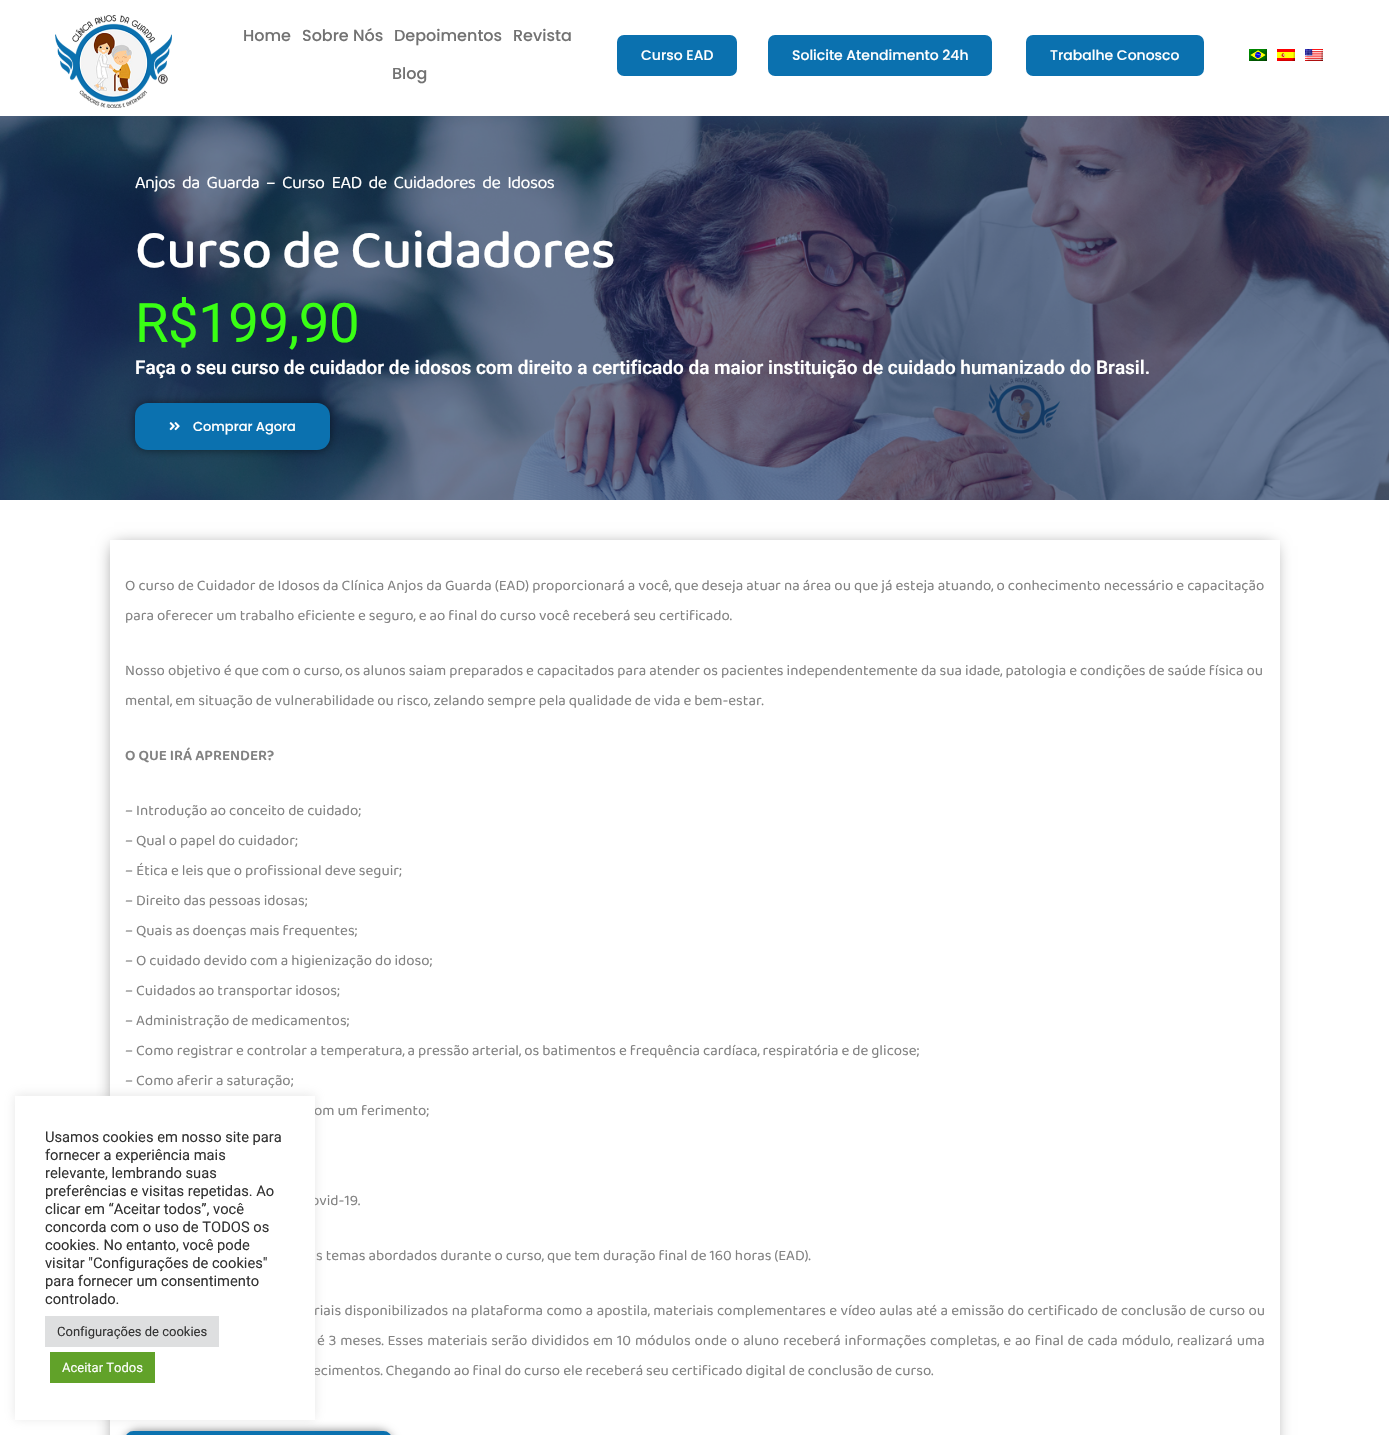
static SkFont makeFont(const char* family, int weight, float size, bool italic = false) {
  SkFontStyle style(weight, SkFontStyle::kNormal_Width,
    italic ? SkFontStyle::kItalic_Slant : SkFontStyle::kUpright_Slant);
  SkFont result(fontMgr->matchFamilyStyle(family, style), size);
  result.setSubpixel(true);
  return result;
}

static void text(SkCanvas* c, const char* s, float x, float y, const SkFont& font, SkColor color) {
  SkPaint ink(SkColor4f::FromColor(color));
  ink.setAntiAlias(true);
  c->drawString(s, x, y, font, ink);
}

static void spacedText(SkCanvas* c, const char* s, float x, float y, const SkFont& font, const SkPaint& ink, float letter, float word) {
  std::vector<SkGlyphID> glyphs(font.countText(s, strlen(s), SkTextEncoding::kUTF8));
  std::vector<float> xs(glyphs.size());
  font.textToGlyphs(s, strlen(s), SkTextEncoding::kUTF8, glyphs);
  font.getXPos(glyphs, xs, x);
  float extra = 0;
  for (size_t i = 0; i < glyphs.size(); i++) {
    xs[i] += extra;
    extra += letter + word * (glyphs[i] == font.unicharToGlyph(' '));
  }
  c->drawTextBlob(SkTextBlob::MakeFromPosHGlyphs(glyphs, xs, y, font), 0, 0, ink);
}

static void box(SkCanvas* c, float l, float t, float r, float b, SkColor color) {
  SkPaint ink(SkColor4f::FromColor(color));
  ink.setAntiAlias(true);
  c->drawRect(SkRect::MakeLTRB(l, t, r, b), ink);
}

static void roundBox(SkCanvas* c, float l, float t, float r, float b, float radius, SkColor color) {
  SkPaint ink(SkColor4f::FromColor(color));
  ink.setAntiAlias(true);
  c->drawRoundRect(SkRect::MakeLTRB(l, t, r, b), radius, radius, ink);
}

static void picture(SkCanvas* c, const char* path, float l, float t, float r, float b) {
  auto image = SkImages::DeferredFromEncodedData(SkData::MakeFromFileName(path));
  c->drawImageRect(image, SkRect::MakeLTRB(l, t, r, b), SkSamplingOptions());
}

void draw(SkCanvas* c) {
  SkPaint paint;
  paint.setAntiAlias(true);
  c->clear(0xffffffff);
  picture(c, "img_01.png", 55, 15, 172, 108);
  SkFont face1 = makeFont("Poppins", 500, 16);
  text(c, "Home", 243, 41, face1, 0xff727272);
  text(c, "Sobre Nós", 302, 41, face1, 0xff727272);
  text(c, "Depoimentos", 394, 41, face1, 0xff727272);
  text(c, "Revista", 513, 41, face1, 0xff727272);
  text(c, "Blog", 392, 79, face1, 0xff727272);
  paint.setColor(0xff0b71af);
  c->drawRoundRect(SkRect::MakeLTRB(618, 36, 736, 75), 6, 6, paint);
  paint.setStyle(SkPaint::kStroke_Style);
  paint.setStrokeWidth(2);
  c->drawRoundRect(SkRect::MakeLTRB(618, 36, 736, 75), 6, 6, paint);
  SkFont face2 = makeFont("Poppins", 500, 14);
  text(c, "Curso EAD", 641, 60, face2, 0xffffffff);
  paint.setStyle(SkPaint::kFill_Style);
  c->drawRoundRect(SkRect::MakeLTRB(769, 36, 991, 75), 6, 6, paint);
  paint.setStyle(SkPaint::kStroke_Style);
  c->drawRoundRect(SkRect::MakeLTRB(769, 36, 991, 75), 6, 6, paint);
  text(c, "Solicite Atendimento 24h", 792, 60, face2, 0xffffffff);
  paint.setStyle(SkPaint::kFill_Style);
  c->drawRoundRect(SkRect::MakeLTRB(1027, 36, 1203, 75), 6, 6, paint);
  paint.setStyle(SkPaint::kStroke_Style);
  c->drawRoundRect(SkRect::MakeLTRB(1027, 36, 1203, 75), 6, 6, paint);
  text(c, "Trabalhe Conosco", 1050, 60, face2, 0xffffffff);
  picture(c, "img_02.png", 1249, 49, 1267, 61);
  picture(c, "img_03.png", 1277, 49, 1295, 61);
  picture(c, "img_04.png", 1305, 49, 1323, 61);
  picture(c, "img_05.png", 0, 116, 1389, 500);
  SkFont face3 = makeFont("Baloo 2", 400, 18);
  paint.setStyle(SkPaint::kFill_Style);
  paint.setColor(0xffffffff);
  spacedText(c, "Anjos da Guarda – Curso EAD de Cuidadores de Idosos", 135, 188, face3, paint, -0.6f, 4);
  SkFont face4 = makeFont("Baloo Chettan 2", 500, 54.5f);
  spacedText(c, "Curso de Cuidadores", 135, 267, face4, paint, -0.5f, 0);
  SkFont face5 = makeFont("Roboto", 400, 54.5f);
  paint.setColor(0xff39ff14);
  spacedText(c, "R$199,90", 135, 342, face5, paint, -0.5f, 0);
  SkFont face6 = makeFont("Roboto", 600, 19);
  text(c, "Faça o seu curso de cuidador de idosos com direito a certificado da maior instituição de cuidado humanizado do Brasil.", 135, 374, face6, 0xffffffff);
  paint.setColor(0x80000000);
  paint.setMaskFilter(SkMaskFilter::MakeBlur(kNormal_SkBlurStyle, 5));
  c->drawRoundRect(SkRect::MakeLTRB(135, 403, 330, 450), 13, 13, paint);
  paint.setMaskFilter(nullptr);
  roundBox(c, 135, 403, 330, 450, 13, 0xff0b71af);
  picture(c, "img_06.png", 169, 422, 180, 431);
  SkFont face7 = makeFont("Poppins", 500, 13);
  text(c, "Comprar Agora", 193, 431, face7, 0xffffffff);
  c->save();
  c->clipPath(SkPathBuilder(SkPathFillType::kEvenOdd).moveTo(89, 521).lineTo(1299, 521).lineTo(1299, 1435).lineTo(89, 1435).close().moveTo(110, 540).lineTo(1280, 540).lineTo(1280, 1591).lineTo(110, 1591).close().detach(), true);
  paint.setMaskFilter(SkMaskFilter::MakeBlur(kNormal_SkBlurStyle, 8));
  c->drawRect(SkRect::MakeLTRB(114, 546, 1274, 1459), paint);
  paint.setMaskFilter(nullptr);
  c->restore();
  SkFont face8 = makeFont("Baloo 2", 400, 15);
  paint.setColor(0xff828282);
  spacedText(c, "O curso de Cuidador de Idosos da Clínica Anjos da Guarda (EAD) proporcionará a você, que deseja atuar na área ou que já esteja atuando, o conhecimento necessário e capacitação", 125, 590, face8, paint, 0, 0.1f);
  text(c, "para oferecer um trabalho eficiente e seguro, e ao final do curso você receberá seu certificado.", 125, 620, face8, 0xff828282);
  text(c, "Nosso objetivo é que com o curso, os alunos saiam preparados e capacitados para atender os pacientes independentemente da sua idade, patologia e condições de saúde física ou", 125, 675, face8, 0xff828282);
  text(c, "mental, em situação de vulnerabilidade ou risco, zelando sempre pela qualidade de vida e bem-estar.", 125, 705, face8, 0xff828282);
  SkFont face9 = makeFont("Baloo 2", 600, 15);
  text(c, "O QUE IRÁ APRENDER?", 125, 760, face9, 0xff828282);
  text(c, "– Introdução ao conceito de cuidado;", 125, 815, face8, 0xff828282);
  text(c, "– Qual o papel do cuidador;", 125, 845, face8, 0xff828282);
  text(c, "– Ética e leis que o profissional deve seguir;", 125, 875, face8, 0xff828282);
  text(c, "– Direito das pessoas idosas;", 125, 905, face8, 0xff828282);
  text(c, "– Quais as doenças mais frequentes;", 125, 935, face8, 0xff828282);
  text(c, "– O cuidado devido com a higienização do idoso;", 125, 965, face8, 0xff828282);
  text(c, "– Cuidados ao transportar idosos;", 125, 995, face8, 0xff828282);
  text(c, "– Administração de medicamentos;", 125, 1025, face8, 0xff828282);
  text(c, "– Como registrar e controlar a temperatura, a pressão arterial, os batimentos e frequência cardíaca, respiratória e de glicose;", 125, 1055, face8, 0xff828282);
  text(c, "– Como aferir a saturação;", 125, 1085, face8, 0xff828282);
  text(c, "om um ferimento;", 314, 1115, face8, 0xff828282);
  text(c, "ovid-19.", 311, 1205, face8, 0xff828282);
  text(c, "s temas abordados durante o curso, que tem duração final de 160 horas (EAD).", 316, 1260, face8, 0xff828282);
  spacedText(c, "riais disponibilizados na plataforma como a apostila, materiais complementares e vídeo aulas até a emissão do certificado de conclusão de curso ou", 314, 1315, face8, paint, 0, 0.4f);
  spacedText(c, "é 3 meses. Esses materiais serão divididos em 10 módulos onde o aluno receberá informações completas, e ao final de cada módulo, realizará uma", 317, 1345, face8, paint, 0, 0.9f);
  text(c, "ecimentos. Chegando ao final do curso ele receberá seu certificado digital de conclusão de curso.", 313, 1375, face8, 0xff828282);
  paint.setColor(0x80000000);
  paint.setMaskFilter(SkMaskFilter::MakeBlur(kNormal_SkBlurStyle, 5));
  c->drawRoundRect(SkRect::MakeLTRB(125, 1431, 392, 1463), 13, 13, paint);
  paint.setMaskFilter(nullptr);
  roundBox(c, 125, 1431, 392, 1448, 13, 0xff0b71af);
  paint.setColor(0x4dacabab);
  paint.setMaskFilter(SkMaskFilter::MakeBlur(kNormal_SkBlurStyle, 5));
  c->drawRect(SkRect::MakeLTRB(15, 1095, 315, 1419), paint);
  paint.setMaskFilter(nullptr);
  box(c, 15, 1096, 315, 1420, 0xffffffff);
  SkFont face10 = makeFont("Roboto", 400, 14.7f);
  text(c, "Usamos cookies em nosso site para", 45, 1142, face10, 0xff333333);
  text(c, "fornecer a experiência mais", 45, 1160, face10, 0xff333333);
  text(c, "relevante, lembrando suas", 45, 1178, face10, 0xff333333);
  text(c, "preferências e visitas repetidas. Ao", 45, 1196, face10, 0xff333333);
  text(c, "clicar em “Aceitar todos”, você", 45, 1214, face10, 0xff333333);
  text(c, "concorda com o uso de TODOS os", 45, 1232, face10, 0xff333333);
  text(c, "cookies. No entanto, você pode", 45, 1250, face10, 0xff333333);
  text(c, "visitar \"Configurações de cookies\"", 45, 1268, face10, 0xff333333);
  text(c, "para fornecer um consentimento", 45, 1286, face10, 0xff333333);
  text(c, "controlado.", 45, 1304, face10, 0xff333333);
  box(c, 45, 1316, 219, 1347, 0xffdedfe0);
  SkFont face11 = makeFont("Roboto", 400, 13);
  text(c, "Configurações de cookies", 57, 1336, face11, 0xff333333);
  box(c, 50, 1352, 155, 1383, 0xff61a229);
  text(c, "Aceitar Todos", 62, 1372, face11, 0xffffffff);
}
